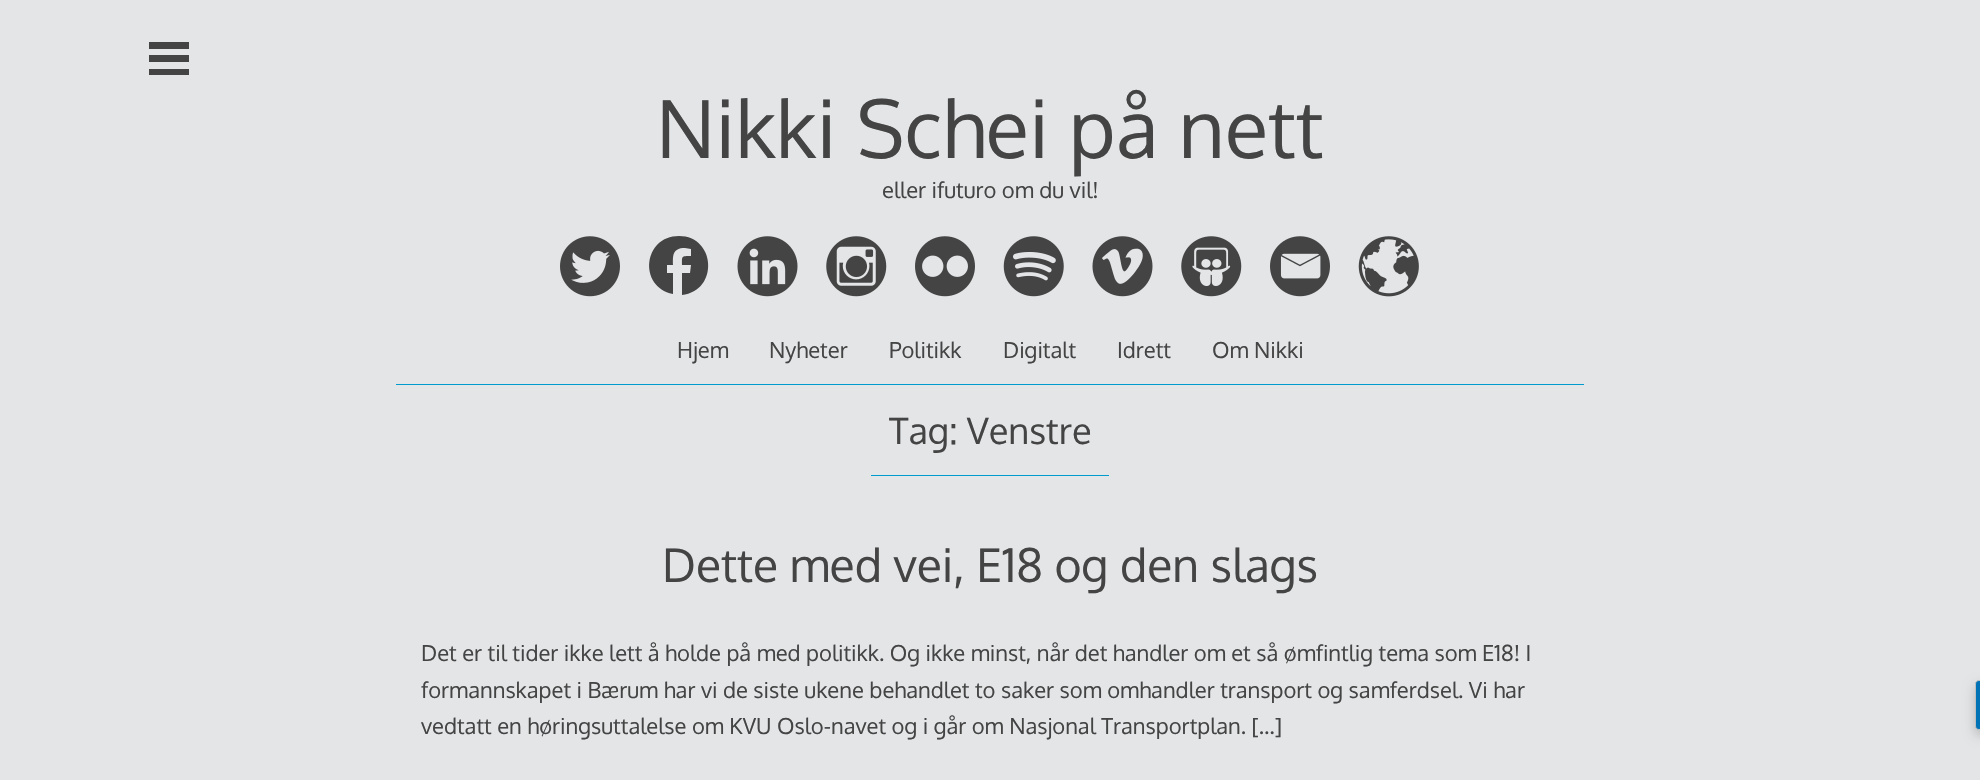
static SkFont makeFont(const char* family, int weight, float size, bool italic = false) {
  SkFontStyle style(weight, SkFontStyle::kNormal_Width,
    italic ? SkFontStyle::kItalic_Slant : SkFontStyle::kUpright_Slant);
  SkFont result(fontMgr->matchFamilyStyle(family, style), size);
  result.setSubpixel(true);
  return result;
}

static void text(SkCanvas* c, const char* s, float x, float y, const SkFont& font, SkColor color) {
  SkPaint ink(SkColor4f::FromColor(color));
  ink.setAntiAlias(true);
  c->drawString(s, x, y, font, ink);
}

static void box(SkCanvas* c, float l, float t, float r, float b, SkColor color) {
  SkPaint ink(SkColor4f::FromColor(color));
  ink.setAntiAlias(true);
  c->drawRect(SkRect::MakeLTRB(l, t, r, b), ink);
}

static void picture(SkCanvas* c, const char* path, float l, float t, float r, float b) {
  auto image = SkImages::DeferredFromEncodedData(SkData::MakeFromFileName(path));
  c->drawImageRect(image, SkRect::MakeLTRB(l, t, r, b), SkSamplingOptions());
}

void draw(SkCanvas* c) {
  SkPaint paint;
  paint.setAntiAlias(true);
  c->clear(0xffe3e5e7);
  box(c, 149, 42, 189, 49, 0xff444444);
  box(c, 149, 55, 189, 62, 0xff444444);
  box(c, 149, 69, 189, 75, 0xff444444);
  box(c, 396, 384, 1584, 385, 0xff009bcd);
  SkFont face1 = makeFont("Oxygen", 400, 80);
  text(c, "Nikki Schei på nett", 656, 158, face1, 0xff444444);
  SkFont face2 = makeFont("Oxygen", 400, 22);
  text(c, "eller ifuturo om du vil!", 882, 198, face2, 0xff444444);
  picture(c, "img_01.png", 560, 236, 620, 297);
  paint.setColor(0xff444444);
  c->drawPath(SkPathBuilder(SkPathFillType::kEvenOdd).moveTo(679, 236).cubicTo(716, 236, 719, 291, 682, 295).lineTo(682, 273).lineTo(690, 273).lineTo(691, 265).lineTo(682, 265).cubicTo(682, 256, 681, 256, 691, 256).lineTo(691, 249).lineTo(685, 248).cubicTo(672, 248, 673, 256, 673, 265).lineTo(667, 265).lineTo(667, 273).lineTo(673, 273).lineTo(673, 294).cubicTo(638, 287, 643, 236, 679, 236).close().detach(), paint);
  picture(c, "img_02.png", 737, 236, 798, 297);
  picture(c, "img_03.png", 826, 236, 887, 297);
  picture(c, "img_04.png", 915, 236, 975, 297);
  picture(c, "img_05.png", 1003, 236, 1064, 297);
  picture(c, "img_06.png", 1092, 236, 1153, 297);
  picture(c, "img_07.png", 1181, 236, 1242, 297);
  picture(c, "img_08.png", 1270, 236, 1330, 297);
  picture(c, "img_09.png", 1358, 236, 1419, 297);
  text(c, "Hjem", 677, 358, face2, 0xff444444);
  text(c, "Nyheter", 769, 358, face2, 0xff444444);
  text(c, "Politikk", 889, 358, face2, 0xff444444);
  text(c, "Digitalt", 1003, 358, face2, 0xff444444);
  text(c, "Idrett", 1117, 358, face2, 0xff444444);
  text(c, "Om Nikki", 1212, 358, face2, 0xff444444);
  box(c, 871, 475, 1109, 476, 0xff009bcd);
  SkFont face3 = makeFont("Oxygen", 400, 36.25f);
  text(c, "Tag: Venstre", 889, 444, face3, 0xff444444);
  SkFont face4 = makeFont("Oxygen", 400, 46.25f);
  text(c, "Dette med vei, E18 og den slags", 662, 582, face4, 0xff444444);
  text(c, "Det er til tider ikke lett å holde på med politikk. Og ikke minst, når det handler om et så ømfintlig tema som E18! I", 421, 661, face2, 0xff444444);
  text(c, "formannskapet i Bærum har vi de siste ukene behandlet to saker som omhandler transport og samferdsel. Vi har", 421, 698, face2, 0xff444444);
  text(c, "vedtatt en høringsuttalelse om KVU Oslo-navet og i går om Nasjonal Transportplan. […]", 421, 734, face2, 0xff444444);
  paint.setColor(0x33000000);
  paint.setMaskFilter(SkMaskFilter::MakeBlur(kNormal_SkBlurStyle, 6));
  c->drawRoundRect(SkRect::MakeLTRB(1975, 685, 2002, 735), 4, 4, paint);
  paint.setMaskFilter(nullptr);
  paint.setColor(0xff0073b7);
  c->drawPath(SkPathBuilder().moveTo(1979, 680.5f).lineTo(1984.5f, 680.5f).lineTo(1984.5f, 729.5f).lineTo(1979, 729.5f).cubicTo(1977, 729.5f, 1975.5f, 728, 1975.5f, 726).lineTo(1975.5f, 684).cubicTo(1975.5f, 682, 1977, 680.5f, 1979, 680.5f).close().detach(), paint);
  paint.setStyle(SkPaint::kStroke_Style);
  paint.setStrokeWidth(1);
  paint.setColor(0xffc0c0c0);
  c->drawPath(SkPathBuilder().moveTo(1979, 680.5f).lineTo(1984.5f, 680.5f).lineTo(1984.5f, 729.5f).lineTo(1979, 729.5f).cubicTo(1977, 729.5f, 1975.5f, 728, 1975.5f, 726).lineTo(1975.5f, 684).cubicTo(1975.5f, 682, 1977, 680.5f, 1979, 680.5f).close().detach(), paint);
}
